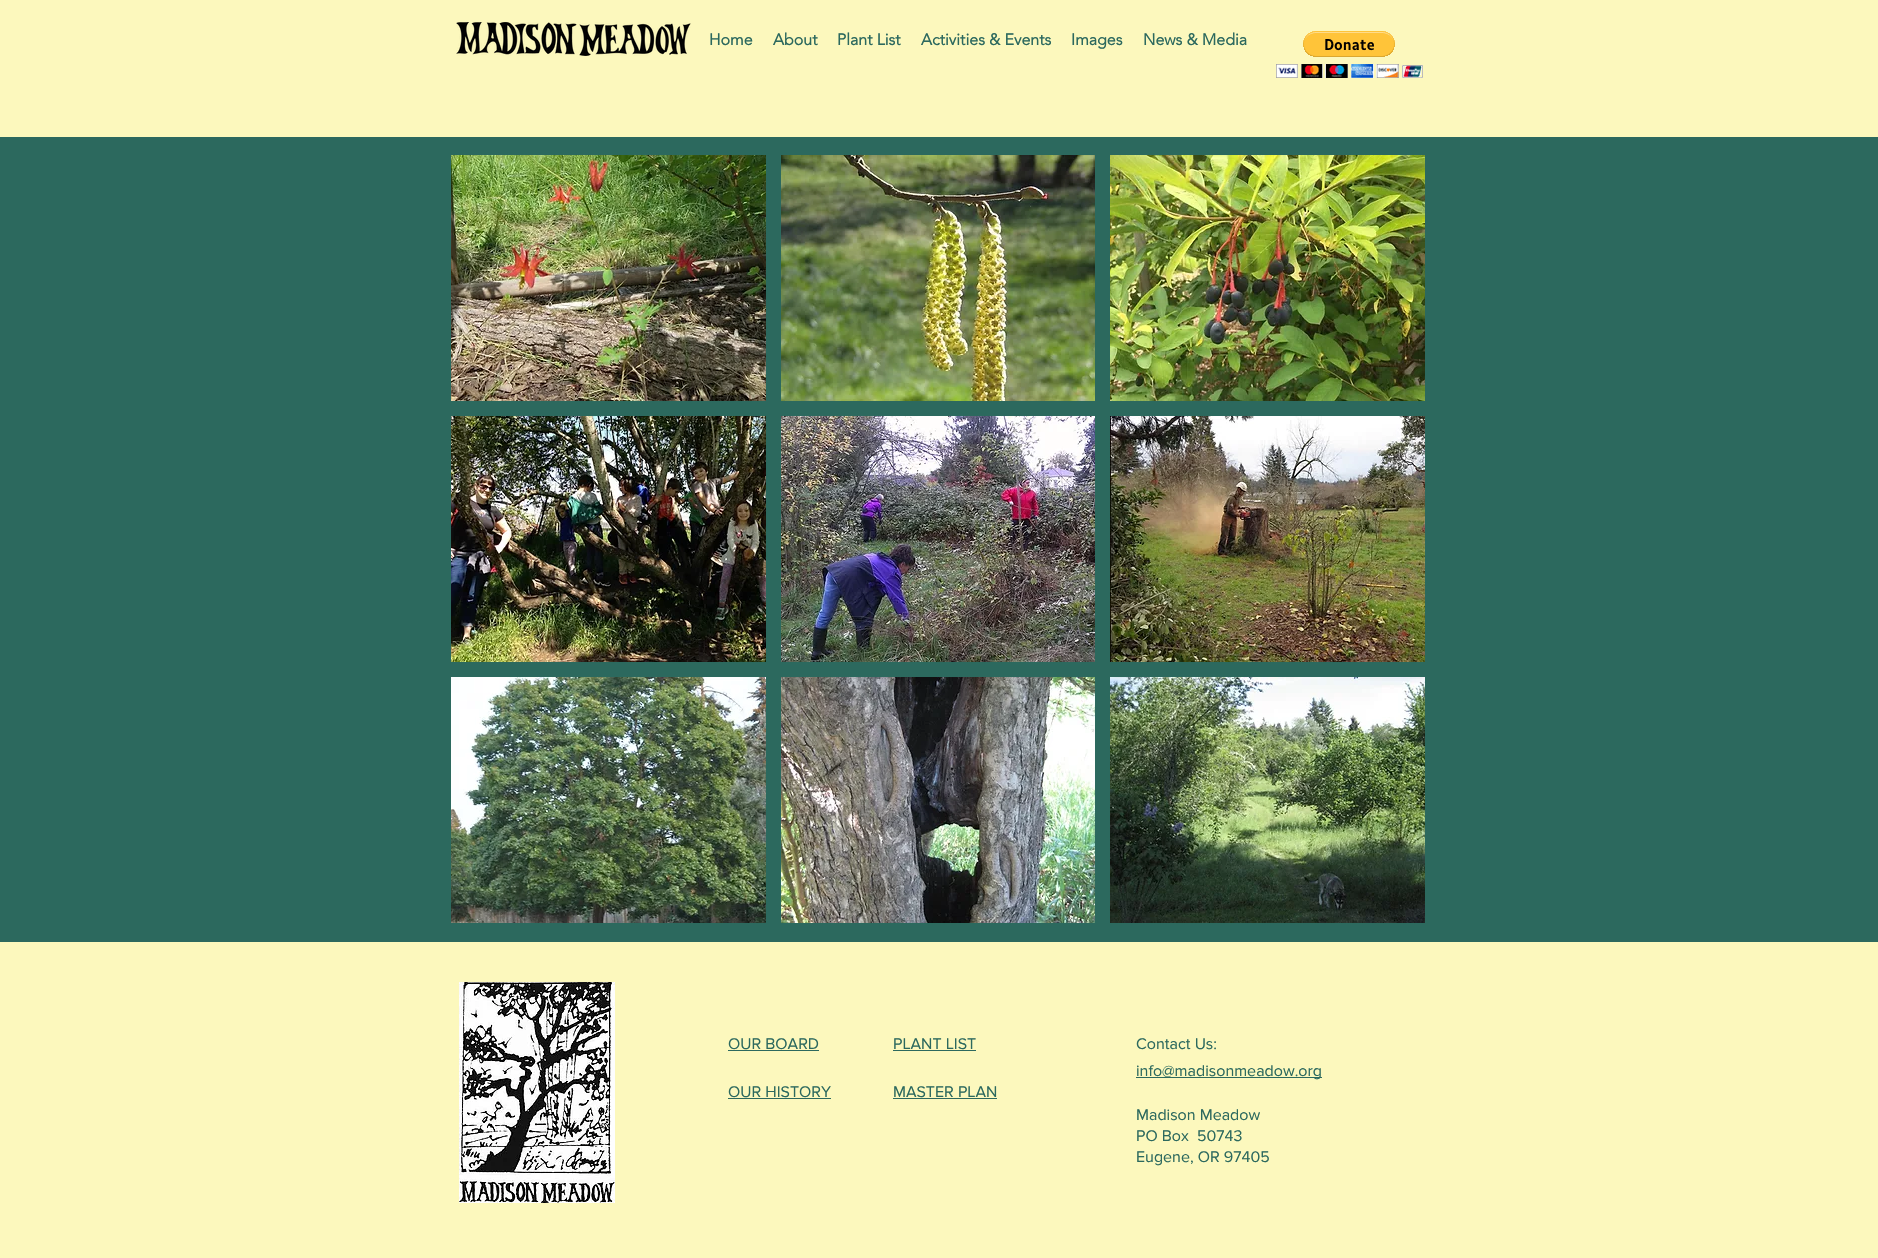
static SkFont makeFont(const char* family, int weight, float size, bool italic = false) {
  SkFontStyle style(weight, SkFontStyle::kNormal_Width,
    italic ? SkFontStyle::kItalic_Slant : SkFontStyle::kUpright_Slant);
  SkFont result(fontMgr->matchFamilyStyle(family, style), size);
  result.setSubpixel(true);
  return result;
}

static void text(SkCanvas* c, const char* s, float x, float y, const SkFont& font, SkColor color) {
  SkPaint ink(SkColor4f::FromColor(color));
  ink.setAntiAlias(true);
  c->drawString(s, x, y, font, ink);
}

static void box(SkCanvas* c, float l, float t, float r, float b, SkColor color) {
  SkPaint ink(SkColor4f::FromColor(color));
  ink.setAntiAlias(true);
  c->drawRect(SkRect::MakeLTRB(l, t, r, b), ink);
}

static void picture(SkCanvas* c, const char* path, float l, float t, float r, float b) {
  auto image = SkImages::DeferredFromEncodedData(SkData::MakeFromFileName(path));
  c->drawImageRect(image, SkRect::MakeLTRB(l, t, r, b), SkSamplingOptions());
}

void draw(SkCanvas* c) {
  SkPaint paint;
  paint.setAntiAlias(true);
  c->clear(0xff2c695e);
  box(c, 0, 0, 1878, 137, 0xfffcf8bd);
  picture(c, "img_01.png", 456, 22, 691, 56);
  SkFont face1 = makeFont("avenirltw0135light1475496", 700, 16);
  text(c, "Home", 709, 45, face1, 0xff2c695e);
  text(c, "About", 773, 45, face1, 0xff2c695e);
  text(c, "Plant List", 837, 45, face1, 0xff2c695e);
  text(c, "Activities & Events", 921, 45, face1, 0xff2c695e);
  text(c, "Images", 1071, 45, face1, 0xff2c695e);
  text(c, "News & Media", 1143, 45, face1, 0xff2c695e);
  picture(c, "img_02.png", 1276, 31, 1423, 78);
  picture(c, "img_03.png", 451, 155, 766, 401);
  picture(c, "img_04.png", 781, 155, 1095, 401);
  picture(c, "img_05.png", 1110, 155, 1425, 401);
  picture(c, "img_06.png", 451, 416, 766, 662);
  picture(c, "img_07.png", 781, 416, 1095, 662);
  picture(c, "img_08.png", 1110, 416, 1425, 662);
  picture(c, "img_09.png", 451, 677, 766, 923);
  picture(c, "img_10.png", 781, 677, 1095, 923);
  picture(c, "img_11.png", 1110, 677, 1425, 923);
  box(c, 0, 942, 1878, 1258, 0xfffcf8bd);
  picture(c, "img_12.png", 459, 982, 615, 1203);
  SkFont face2 = makeFont("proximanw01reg", 400, 16);
  text(c, "OUR BOARD", 728, 1049, face2, 0xff2c695e);
  box(c, 728, 1050, 819, 1051, 0xff2c695e);
  text(c, "PLANT LIST", 893, 1049, face2, 0xff2c695e);
  box(c, 893, 1050, 976, 1051, 0xff2c695e);
  text(c, "Contact Us:", 1136, 1049, face2, 0xff2c695e);
  box(c, 1136, 1077, 1322, 1078, 0xff2c695e);
  text(c, "info@madisonmeadow.org", 1136, 1076, face2, 0xff2c695e);
  text(c, "Madison Meadow", 1136, 1120, face2, 0xff2c695e);
  text(c, "PO Box  50743", 1136, 1141, face2, 0xff2c695e);
  text(c, "Eugene, OR 97405", 1136, 1162, face2, 0xff2c695e);
  text(c, "OUR HISTORY", 728, 1097, face2, 0xff2c695e);
  box(c, 728, 1098, 831, 1099, 0xff2c695e);
  text(c, "MASTER PLAN", 893, 1097, face2, 0xff2c695e);
  box(c, 893, 1098, 997, 1099, 0xff2c695e);
}
